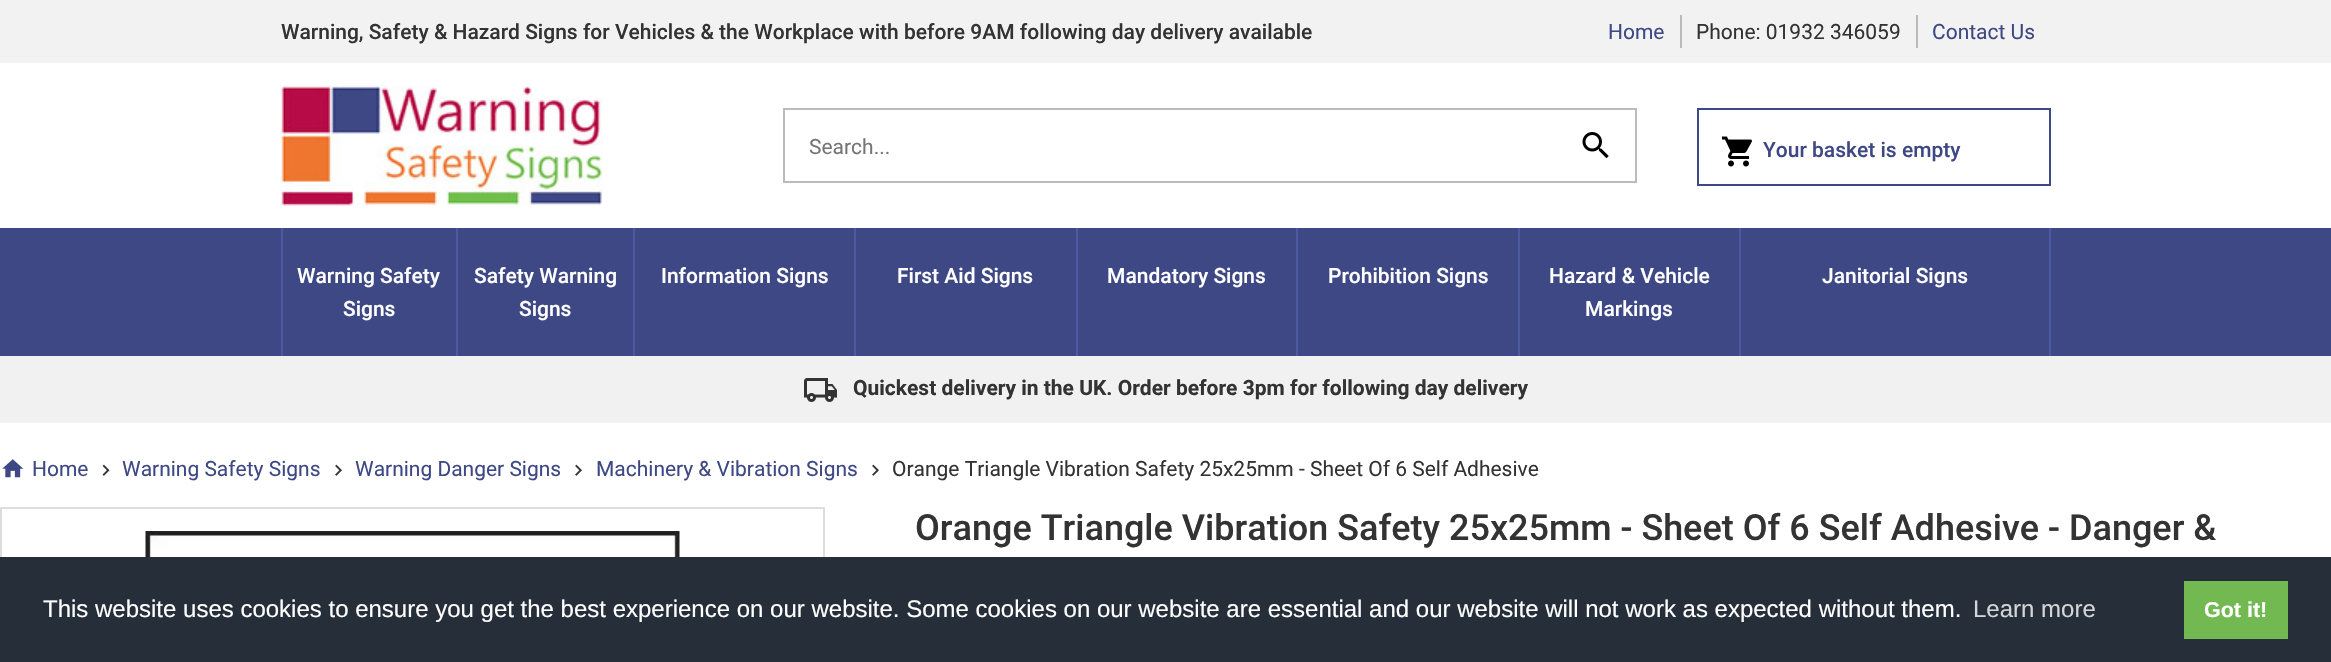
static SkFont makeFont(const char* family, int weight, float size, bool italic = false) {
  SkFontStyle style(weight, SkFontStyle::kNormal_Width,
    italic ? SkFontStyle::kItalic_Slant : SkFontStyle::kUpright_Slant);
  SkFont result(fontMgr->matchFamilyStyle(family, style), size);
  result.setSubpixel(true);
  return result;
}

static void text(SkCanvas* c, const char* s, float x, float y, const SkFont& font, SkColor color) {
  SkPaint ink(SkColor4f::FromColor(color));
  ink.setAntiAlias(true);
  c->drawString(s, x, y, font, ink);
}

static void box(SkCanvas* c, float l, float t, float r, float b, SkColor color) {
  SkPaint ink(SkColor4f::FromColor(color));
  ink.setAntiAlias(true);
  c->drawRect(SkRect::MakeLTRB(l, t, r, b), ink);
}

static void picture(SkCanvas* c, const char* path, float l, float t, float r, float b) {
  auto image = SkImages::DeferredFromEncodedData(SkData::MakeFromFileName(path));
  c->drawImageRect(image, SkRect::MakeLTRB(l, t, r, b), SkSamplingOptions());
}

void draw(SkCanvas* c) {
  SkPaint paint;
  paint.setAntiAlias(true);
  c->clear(0xffffffff);
  box(c, 0, 0, 2331, 63, 0xfff2f2f2);
  SkFont face1 = makeFont("Roboto", 500, 21);
  text(c, "Warning, Safety & Hazard Signs for Vehicles & the Workplace with before 9AM following day delivery available", 281, 39, face1, 0xff333333);
  box(c, 1680, 15, 1682, 48, 0xffbbbbbb);
  SkFont face2 = makeFont("Roboto", 400, 21);
  text(c, "Home", 1608, 39, face2, 0xff3e4885);
  box(c, 1916, 15, 1918, 48, 0xffbbbbbb);
  text(c, "Phone: 01932 346059", 1696, 39, face2, 0xff333333);
  text(c, "Contact Us", 1932, 39, face2, 0xff3e4885);
  picture(c, "img_01.png", 280, 85, 603, 206);
  paint.setStyle(SkPaint::kStroke_Style);
  paint.setStrokeWidth(2);
  paint.setColor(0xffbbbbbb);
  c->drawRect(SkRect::MakeLTRB(784, 109, 1636, 182), paint);
  text(c, "Search...", 809, 154, face2, 0xff757575);
  picture(c, "img_02.png", 1582, 132, 1609, 159);
  paint.setColor(0xff3e4885);
  c->drawRect(SkRect::MakeLTRB(1698, 109, 2050, 185), paint);
  picture(c, "img_03.png", 1722, 136, 1752, 167);
  text(c, "Your basket is empty", 1763, 157, face1, 0xff3e4885);
  box(c, 0, 228, 2331, 356, 0xff3e4885);
  box(c, 456, 228, 458, 356, 0xff4d59a4);
  box(c, 281, 228, 283, 356, 0xff4d59a4);
  text(c, "Warning Safety", 297, 283, face1, 0xffffffff);
  text(c, "Signs", 343, 316, face1, 0xffffffff);
  box(c, 633, 228, 635, 356, 0xff4d59a4);
  text(c, "Safety Warning", 474, 283, face1, 0xffffffff);
  text(c, "Signs", 519, 316, face1, 0xffffffff);
  box(c, 854, 228, 856, 356, 0xff4d59a4);
  text(c, "Information Signs", 661, 283, face1, 0xffffffff);
  box(c, 1076, 228, 1078, 356, 0xff4d59a4);
  text(c, "First Aid Signs", 897, 283, face1, 0xffffffff);
  box(c, 1296, 228, 1298, 356, 0xff4d59a4);
  text(c, "Mandatory Signs", 1107, 283, face1, 0xffffffff);
  box(c, 1518, 228, 1520, 356, 0xff4d59a4);
  text(c, "Prohibition Signs", 1328, 283, face1, 0xffffffff);
  box(c, 1739, 228, 1741, 356, 0xff4d59a4);
  text(c, "Hazard & Vehicle", 1549, 283, face1, 0xffffffff);
  text(c, "Markings", 1585, 316, face1, 0xffffffff);
  box(c, 2049, 228, 2051, 356, 0xff4d59a4);
  text(c, "Janitorial Signs", 1822, 283, face1, 0xffffffff);
  box(c, 0, 356, 2331, 423, 0xfff1f1f1);
  picture(c, "img_04.png", 804, 378, 837, 402);
  SkFont face3 = makeFont("Roboto", 700, 21);
  text(c, "Quickest delivery in the UK. Order before 3pm for following day delivery", 853, 395, face3, 0xff333333);
  picture(c, "img_05.png", 2, 459, 24, 478);
  text(c, "Home", 32, 476, face2, 0xff3e4885);
  picture(c, "img_06.png", 102, 464, 110, 476);
  text(c, "Warning Safety Signs", 122, 476, face2, 0xff3e4885);
  picture(c, "img_07.png", 335, 464, 342, 476);
  text(c, "Warning Danger Signs", 355, 476, face2, 0xff3e4885);
  picture(c, "img_07.png", 575, 464, 582, 476);
  text(c, "Machinery & Vibration Signs", 596, 476, face2, 0xff3e4885);
  picture(c, "img_07.png", 872, 464, 879, 476);
  text(c, "Orange Triangle Vibration Safety 25x25mm - Sheet Of 6 Self Adhesive", 892, 476, face2, 0xff333333);
  paint.setColor(0xffdddddd);
  c->drawRect(SkRect::MakeLTRB(1, 508, 824, 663), paint);
  picture(c, "img_08.png", 145, 531, 680, 557);
  SkFont face4 = makeFont("Roboto", 500, 36);
  text(c, "Orange Triangle Vibration Safety 25x25mm - Sheet Of 6 Self Adhesive - Danger &", 915, 540, face4, 0xff333333);
  box(c, 0, 557, 2331, 662, 0xff252e39);
  SkFont face5 = makeFont("Liberation Sans", 400, 24);
  text(c, "This website uses cookies to ensure you get the best experience on our website. Some cookies on our website are essential and our website will not work as expected without them.", 43, 617, face5, 0xffffffff);
  text(c, "Learn more", 1973, 617, face5, 0xffd3d5d7);
  box(c, 2184, 581, 2288, 639, 0xff72b952);
  SkFont face6 = makeFont("Liberation Sans", 700, 21.5f);
  text(c, "Got it!", 2204, 617, face6, 0xffffffff);
}
